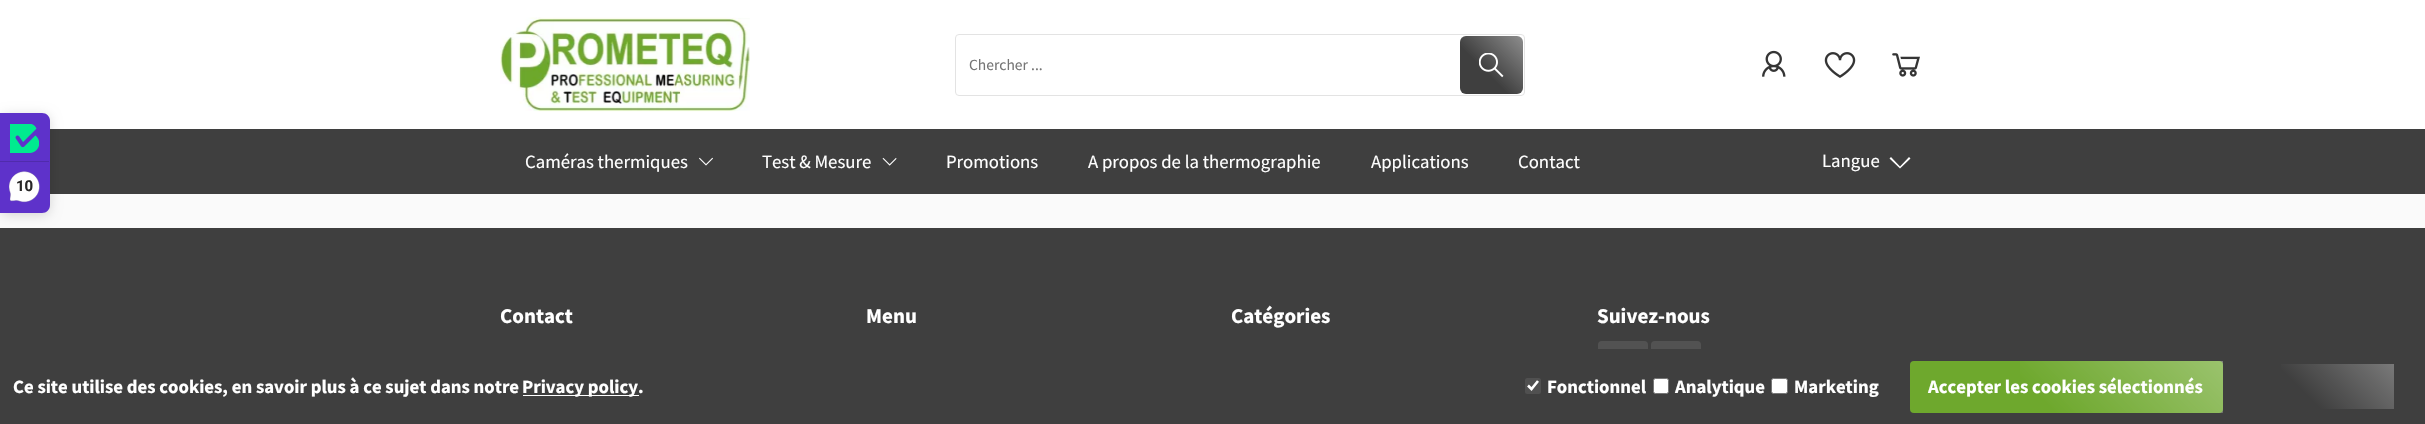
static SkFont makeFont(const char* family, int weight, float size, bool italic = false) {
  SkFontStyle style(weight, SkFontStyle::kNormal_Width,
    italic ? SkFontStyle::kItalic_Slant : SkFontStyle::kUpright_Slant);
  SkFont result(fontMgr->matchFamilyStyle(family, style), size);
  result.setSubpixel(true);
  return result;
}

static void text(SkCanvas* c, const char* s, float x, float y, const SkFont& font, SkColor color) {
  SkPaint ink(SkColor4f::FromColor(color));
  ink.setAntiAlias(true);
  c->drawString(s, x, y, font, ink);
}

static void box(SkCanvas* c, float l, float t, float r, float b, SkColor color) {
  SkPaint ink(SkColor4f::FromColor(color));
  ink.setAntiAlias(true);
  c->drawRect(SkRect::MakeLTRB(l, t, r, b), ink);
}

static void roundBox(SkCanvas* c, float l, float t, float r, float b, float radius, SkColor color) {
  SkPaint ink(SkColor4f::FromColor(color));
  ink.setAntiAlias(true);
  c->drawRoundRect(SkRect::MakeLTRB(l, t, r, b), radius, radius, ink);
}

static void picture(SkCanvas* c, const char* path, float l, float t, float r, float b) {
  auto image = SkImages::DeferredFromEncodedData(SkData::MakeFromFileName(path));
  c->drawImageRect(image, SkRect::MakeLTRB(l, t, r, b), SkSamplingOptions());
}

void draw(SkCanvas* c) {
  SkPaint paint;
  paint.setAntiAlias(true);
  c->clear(0xfffafafa);
  box(c, 0, 0, 2425, 129, 0xffffffff);
  picture(c, "img_01.png", 500, 17, 750, 112);
  paint.setStyle(SkPaint::kStroke_Style);
  paint.setStrokeWidth(1);
  paint.setColor(0xffe3e3e3);
  c->drawRoundRect(SkRect::MakeLTRB(955.5f, 34.5f, 1524.5f, 95.5f), 3.5f, 3.5f, paint);
  SkFont face1 = makeFont("Source Sans Pro", 400, 15.5f);
  text(c, "Chercher ...", 969, 70, face1, 0xff757575);
  roundBox(c, 1460, 36, 1523, 94, 6, 0xff3f3f3f);
  paint.setStyle(SkPaint::kFill_Style);
  {
    const SkColor colors[] = {0x66ffffff, 0x00ffffff};
    const float stops[] = {0, 0.6f};
    const SkPoint ends[] = {{1521, 35}, {1461, 95}};
    paint.setShader(SkGradientShader::MakeLinear(ends, colors, stops, 2, SkTileMode::kClamp));
    paint.setAlpha(255);
  }
  c->drawRect(SkRect::MakeLTRB(1460, 36, 1523, 94), paint);
  picture(c, "img_02.png", 1479, 53, 1504, 78);
  picture(c, "img_03.png", 1762, 50, 1786, 77);
  picture(c, "img_04.png", 1824, 52, 1856, 78);
  picture(c, "img_05.png", 1892, 53, 1920, 77);
  box(c, 50, 129, 2425, 194, 0xff3f3f3f);
  SkFont face2 = makeFont("Source Sans Pro", 400, 18.75f);
  text(c, "Caméras thermiques", 525, 168, face2, 0xffffffff);
  picture(c, "img_06.png", 699, 157, 713, 166);
  text(c, "Test & Mesure", 762, 168, face2, 0xffffffff);
  picture(c, "img_07.png", 882, 157, 897, 166);
  text(c, "Promotions", 946, 168, face2, 0xffffffff);
  text(c, "A propos de la thermographie", 1088, 168, face2, 0xffffffff);
  text(c, "Applications", 1371, 168, face2, 0xffffffff);
  text(c, "Contact", 1518, 168, face2, 0xffffffff);
  text(c, "Langue", 1822, 167, face2, 0xffffffff);
  paint.setShader(nullptr);
  paint.setColor(0xffffffff);
  c->drawPath(SkPathBuilder().moveTo(1891, 157).lineTo(1889.5f, 158.5f).lineTo(1900, 168.5f).lineTo(1910.5f, 158.5f).lineTo(1909, 157).lineTo(1900, 166.5f).close().detach(), paint);
  box(c, 0, 228, 2425, 349, 0xff3f3f3f);
  paint.setColor(0x26000000);
  paint.setMaskFilter(SkMaskFilter::MakeBlur(kNormal_SkBlurStyle, 6));
  c->drawRoundRect(SkRect::MakeLTRB(0, 115, 50, 215), 8, 8, paint);
  paint.setMaskFilter(nullptr);
  paint.setColor(0xff5e32ca);
  c->drawPath(SkPathBuilder().moveTo(0, 113).lineTo(42, 113).cubicTo(46.5f, 113, 50, 116.5f, 50, 121).lineTo(50, 205).cubicTo(50, 209.5f, 46.5f, 213, 42, 213).lineTo(0, 213).close().detach(), paint);
  picture(c, "img_08.png", 10, 124, 39, 153);
  box(c, 0, 161, 49, 162, 0xff502bac);
  picture(c, "img_09.png", 9, 171, 40, 203);
  SkFont face3 = makeFont("Roboto", 700, 15);
  text(c, "10", 16, 191, face3, 0xff272626);
  SkFont face4 = makeFont("Source Sans Pro", 700, 21);
  text(c, "Contact", 500, 323, face4, 0xffffffff);
  text(c, "Menu", 866, 323, face4, 0xffffffff);
  text(c, "Catégories", 1231, 323, face4, 0xffffffff);
  text(c, "Suivez-nous", 1597, 323, face4, 0xffffffff);
  roundBox(c, 1598, 341, 1648, 394, 4, 0xff525252);
  roundBox(c, 1651, 341, 1701, 394, 4, 0xff525252);
  box(c, 0, 349, 2425, 424, 0xff3f3f3f);
  SkFont face5 = makeFont("Source Sans Pro", 700, 18.75f);
  text(c, "Ce site utilise des cookies, en savoir plus à ce sujet dans notre", 13, 393, face5, 0xffffffff);
  box(c, 523, 395, 639, 396, 0xffffffff);
  text(c, "Privacy policy.", 522, 393, face5, 0xffffffff);
  roundBox(c, 1525, 378, 1541, 394, 2.5f, 0xff505050);
  paint.setStyle(SkPaint::kStroke_Style);
  paint.setStrokeWidth(2.6f);
  paint.setColor(0xffffffff);
  c->drawPath(SkPathBuilder().moveTo(1528, 385.5f).lineTo(1531.5f, 389).lineTo(1538, 381).detach(), paint);
  text(c, "Fonctionnel", 1547, 393, face5, 0xffffffff);
  paint.setStyle(SkPaint::kFill_Style);
  c->drawRoundRect(SkRect::MakeLTRB(1653.5f, 378.5f, 1668.5f, 393.5f), 2, 2, paint);
  paint.setStyle(SkPaint::kStroke_Style);
  paint.setStrokeWidth(1);
  paint.setColor(0xff767676);
  c->drawRoundRect(SkRect::MakeLTRB(1653.5f, 378.5f, 1668.5f, 393.5f), 2, 2, paint);
  text(c, "Analytique", 1675, 393, face5, 0xffffffff);
  paint.setStyle(SkPaint::kFill_Style);
  paint.setColor(0xffffffff);
  c->drawRoundRect(SkRect::MakeLTRB(1771.5f, 378.5f, 1787.5f, 393.5f), 2, 2, paint);
  paint.setStyle(SkPaint::kStroke_Style);
  paint.setColor(0xff767676);
  c->drawRoundRect(SkRect::MakeLTRB(1771.5f, 378.5f, 1787.5f, 393.5f), 2, 2, paint);
  text(c, "Marketing", 1794, 393, face5, 0xffffffff);
  roundBox(c, 1910, 361, 2223, 413, 4, 0xff6ea82d);
  paint.setStyle(SkPaint::kFill_Style);
  {
    const SkColor colors[] = {0x4dffffff, 0x00ffffff};
    const float stops[] = {0, 0.6f};
    const SkPoint ends[] = {{2157, 296}, {1975, 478}};
    paint.setShader(SkGradientShader::MakeLinear(ends, colors, stops, 2, SkTileMode::kClamp));
    paint.setAlpha(255);
  }
  c->drawRect(SkRect::MakeLTRB(2020, 361, 2223, 413), paint);
  text(c, "Accepter les cookies sélectionnés", 1928, 393, face5, 0xffffffff);
  {
    const SkColor colors[] = {0xff797979, 0xff3f3f3f};
    const float stops[] = {0, 0.6f};
    const SkPoint ends[] = {{2367, 337}, {2268, 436}};
    paint.setShader(SkGradientShader::MakeLinear(ends, colors, stops, 2, SkTileMode::kClamp));
    paint.setAlpha(255);
  }
  c->drawRect(SkRect::MakeLTRB(2281, 364, 2394, 409), paint);
}
